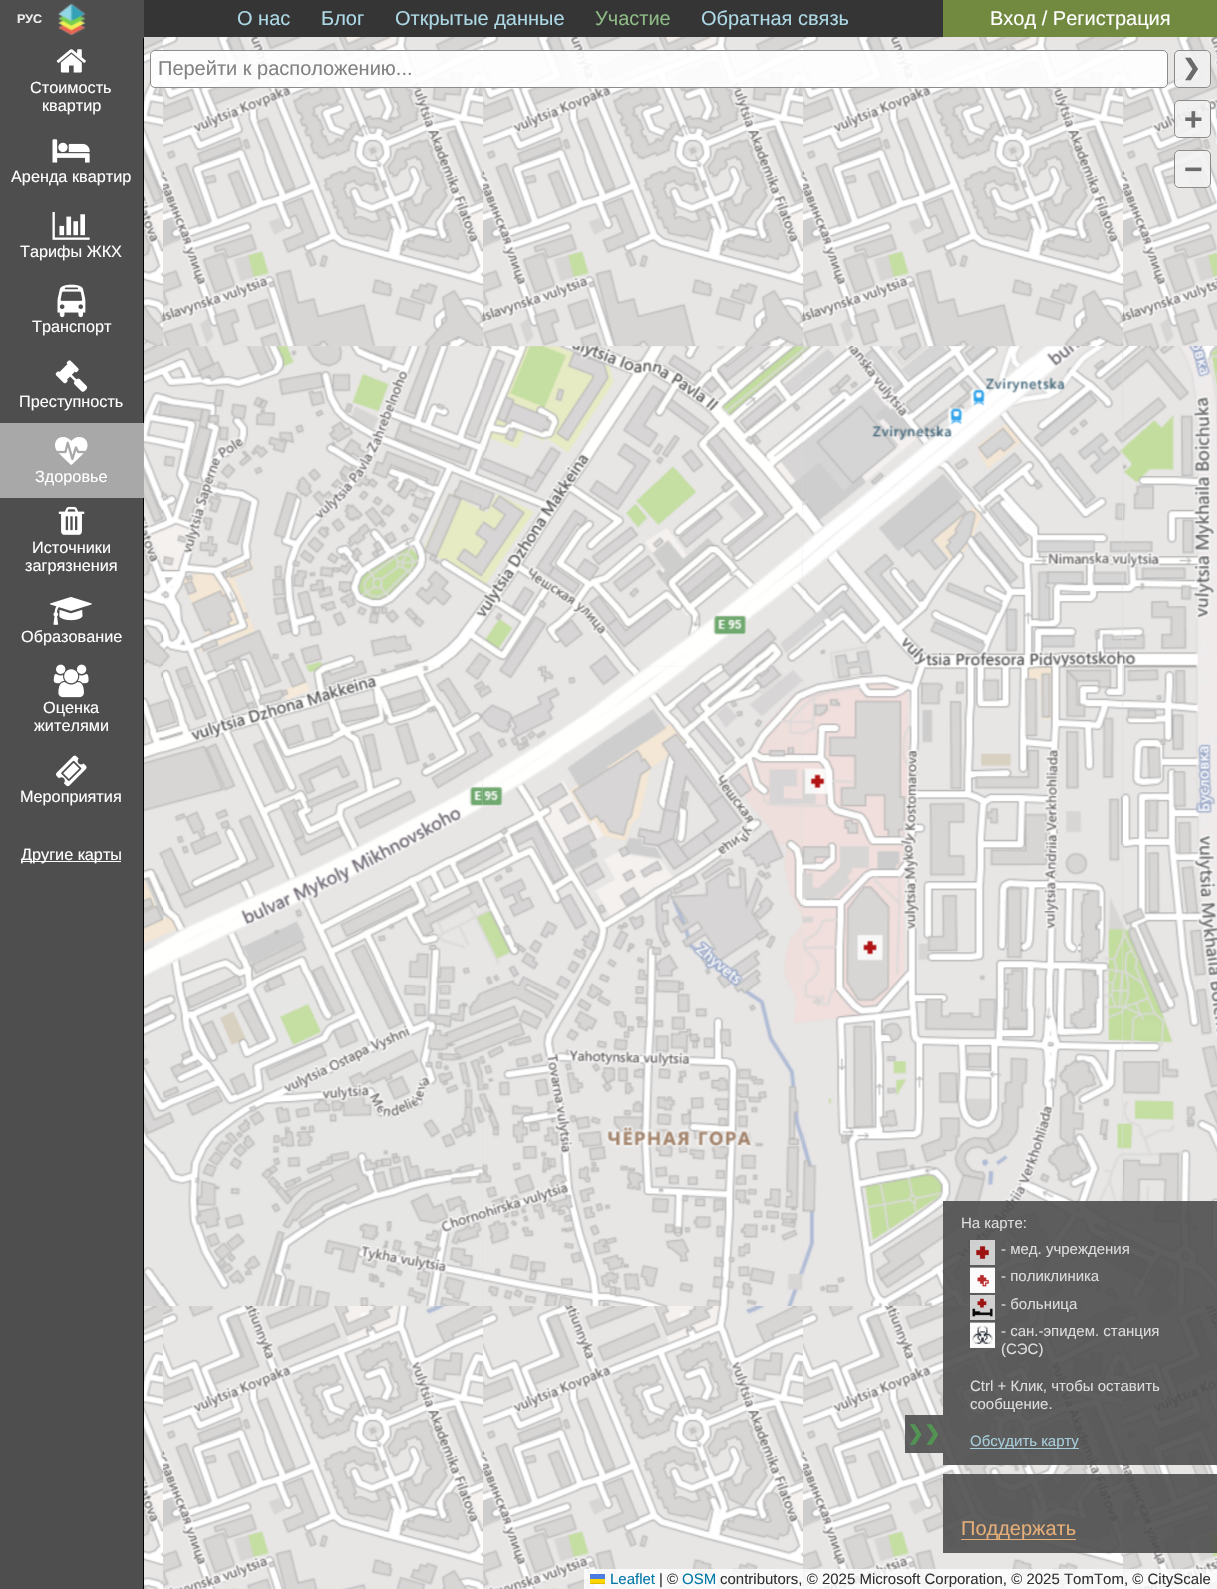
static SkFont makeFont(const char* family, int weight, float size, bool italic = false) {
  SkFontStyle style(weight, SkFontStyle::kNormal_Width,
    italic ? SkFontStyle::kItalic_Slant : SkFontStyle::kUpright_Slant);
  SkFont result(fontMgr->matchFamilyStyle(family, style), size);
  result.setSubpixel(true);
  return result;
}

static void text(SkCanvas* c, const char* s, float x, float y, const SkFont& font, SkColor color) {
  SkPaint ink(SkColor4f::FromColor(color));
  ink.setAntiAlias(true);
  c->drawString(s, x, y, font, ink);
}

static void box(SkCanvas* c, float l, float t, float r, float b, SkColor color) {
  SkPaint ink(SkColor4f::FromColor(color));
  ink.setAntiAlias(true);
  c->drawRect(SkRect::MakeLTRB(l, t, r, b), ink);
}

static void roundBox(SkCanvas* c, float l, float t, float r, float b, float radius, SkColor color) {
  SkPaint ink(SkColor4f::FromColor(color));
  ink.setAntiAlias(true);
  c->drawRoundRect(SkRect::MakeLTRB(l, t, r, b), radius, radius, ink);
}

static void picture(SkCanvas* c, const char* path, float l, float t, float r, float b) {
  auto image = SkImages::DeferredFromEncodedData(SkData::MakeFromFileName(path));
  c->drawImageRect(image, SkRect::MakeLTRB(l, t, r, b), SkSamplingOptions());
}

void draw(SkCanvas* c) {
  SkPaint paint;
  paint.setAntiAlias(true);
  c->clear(0xff4e4e4e);
  box(c, 144, 0, 943, 37, 0xff353535);
  SkFont face1 = makeFont("Liberation Sans", 700, 12.5f);
  text(c, "РУС", 17, 23, face1, 0xffececec);
  picture(c, "img_01.png", 58, 3, 86, 35);
  SkFont face2 = makeFont("Liberation Sans", 400, 20);
  text(c, "О нас", 237, 25, face2, 0xffadd8e6);
  text(c, "Блог", 321, 25, face2, 0xffadd8e6);
  text(c, "Открытые данные", 395, 25, face2, 0xffadd8e6);
  text(c, "Участие", 595, 25, face2, 0xff8dba85);
  text(c, "Обратная связь", 701, 25, face2, 0xffadd8e6);
  box(c, 943, 0, 1217, 37, 0xff718a40);
  text(c, "Вход / Регистрация", 990, 25, face2, 0xffffffff);
  picture(c, "img_02.png", 56, 49, 86, 73);
  SkFont face3 = makeFont("Liberation Sans", 400, 16.25f);
  text(c, "Стоимость", 30, 93, face3, 0xffffffff);
  text(c, "квартир", 42, 111, face3, 0xffffffff);
  picture(c, "img_03.png", 52, 139, 90, 163);
  text(c, "Аренда квартир", 11, 182, face3, 0xffffffff);
  picture(c, "img_04.png", 52, 211, 90, 240);
  text(c, "Тарифы ЖКХ", 20, 257, face3, 0xffffffff);
  picture(c, "img_05.png", 57, 284, 86, 318);
  text(c, "Транспорт", 32, 332, face3, 0xffffffff);
  picture(c, "img_06.png", 55, 360, 88, 392);
  text(c, "Преступность", 19, 407, face3, 0xffffffff);
  box(c, 143, 38, 144, 1589, 0xff000000);
  box(c, 0, 423, 144, 498, 0xffa8a8a8);
  picture(c, "img_07.png", 55, 437, 88, 465);
  text(c, "Здоровье", 35, 482, face3, 0xffffffff);
  picture(c, "img_08.png", 58, 506, 85, 535);
  text(c, "Источники", 32, 553, face3, 0xffffffff);
  text(c, "загрязнения", 25, 571, face3, 0xffffffff);
  picture(c, "img_09.png", 50, 597, 92, 625);
  text(c, "Образование", 21, 642, face3, 0xffffffff);
  picture(c, "img_10.png", 53, 664, 89, 698);
  text(c, "Оценка", 43, 713, face3, 0xffffffff);
  text(c, "жителями", 34, 731, face3, 0xffffffff);
  picture(c, "img_11.png", 56, 755, 87, 787);
  text(c, "Мероприятия", 20, 802, face3, 0xffffffff);
  box(c, 21, 861, 121, 862, 0xffffffff);
  text(c, "Другие карты", 21, 860, face3, 0xffffffff);
  picture(c, "img_12.png", 144, 37, 163, 346);
  picture(c, "img_13.png", 163, 37, 483, 346);
  picture(c, "img_13.png", 483, 37, 803, 346);
  picture(c, "img_13.png", 803, 37, 1123, 346);
  picture(c, "img_14.png", 1123, 37, 1217, 346);
  roundBox(c, 150, 50, 1168, 88, 5, 0xe6ffffff);
  paint.setStyle(SkPaint::kStroke_Style);
  paint.setStrokeWidth(1);
  paint.setColor(0xe6808080);
  c->drawRoundRect(SkRect::MakeLTRB(150.5f, 50.5f, 1167.5f, 87.5f), 4.5f, 4.5f, paint);
  text(c, "Перейти к расположению...", 158, 75, face2, 0xff828282);
  roundBox(c, 1174, 50, 1211, 88, 5, 0xe6f2f2f2);
  c->drawRoundRect(SkRect::MakeLTRB(1174.5f, 50.5f, 1210.5f, 87.5f), 4.5f, 4.5f, paint);
  SkFont face4 = makeFont("DejaVu Sans", 700, 22);
  text(c, "❯", 1182, 75, face4, 0xff6b6b6b);
  box(c, 163, 346, 1123, 1306, 0xffdddddd);
  picture(c, "img_15.png", 144, 346, 163, 666);
  picture(c, "img_22.png", 482, 666, 803, 987);
  picture(c, "img_17.png", 482, 346, 803, 667);
  picture(c, "img_21.png", 163, 666, 483, 987);
  picture(c, "img_16.png", 163, 346, 483, 667);
  picture(c, "img_23.png", 802, 666, 1123, 987);
  picture(c, "img_18.png", 802, 346, 1123, 667);
  picture(c, "img_19.png", 1123, 346, 1217, 666);
  picture(c, "img_20.png", 144, 666, 163, 986);
  picture(c, "img_24.png", 1123, 666, 1217, 986);
  picture(c, "img_25.png", 144, 986, 163, 1306);
  picture(c, "img_27.png", 482, 986, 803, 1306);
  picture(c, "img_26.png", 163, 986, 483, 1306);
  picture(c, "img_28.png", 802, 986, 1123, 1306);
  picture(c, "img_29.png", 1123, 986, 1217, 1306);
  picture(c, "img_30.png", 144, 1306, 163, 1589);
  picture(c, "img_31.png", 163, 1306, 483, 1589);
  picture(c, "img_31.png", 483, 1306, 803, 1589);
  picture(c, "img_31.png", 803, 1306, 1123, 1589);
  picture(c, "img_32.png", 1123, 1306, 1217, 1589);
  picture(c, "img_33.png", 1215, 118, 1217, 144);
  picture(c, "img_34.png", 804, 768, 883, 961);
  roundBox(c, 1174, 100, 1211, 138, 5, 0xe6f2f2f2);
  c->drawRoundRect(SkRect::MakeLTRB(1174.5f, 100.5f, 1210.5f, 137.5f), 4.5f, 4.5f, paint);
  SkFont face5 = makeFont("Liberation Sans", 700, 32);
  text(c, "+", 1184, 130, face5, 0xff6b6b6b);
  roundBox(c, 1174, 150, 1211, 188, 5, 0xe6f2f2f2);
  c->drawRoundRect(SkRect::MakeLTRB(1174.5f, 150.5f, 1210.5f, 187.5f), 4.5f, 4.5f, paint);
  text(c, "−", 1184, 180, face5, 0xff6b6b6b);
  box(c, 584, 1569, 1217, 1589, 0xccffffff);
  SkFont face6 = makeFont("Liberation Sans", 400, 15);
  text(c, "Leaflet", 610, 1584, face6, 0xff0078a8);
  box(c, 590, 1574, 605, 1579, 0xff4c7be1);
  box(c, 590, 1579, 605, 1583, 0xffffd500);
  box(c, 590, 1583, 605, 1584, 0xffe0bc00);
  text(c, "| ©", 659, 1584, face6, 0xff333333);
  text(c, "OSM", 682, 1584, face6, 0xff0078a8);
  text(c, "contributors, © 2025 Microsoft Corporation, © 2025 TomTom, © CityScale", 720, 1584, face6, 0xff333333);
  box(c, 905, 1415, 943, 1453, 0xe64e4e4e);
  SkFont face7 = makeFont("DejaVu Sans", 700, 20);
  text(c, "❯❯", 907, 1440, face7, 0xff539353);
  box(c, 943, 1201, 1217, 1465, 0xe64e4e4e);
  text(c, "На карте:", 961, 1228, face6, 0xffdcdcdc);
  picture(c, "img_35.png", 970, 1240, 995, 1265);
  text(c, "- мед. учреждения", 1001, 1254, face6, 0xffdcdcdc);
  box(c, 970, 1268, 995, 1293, 0xe6ffffff);
  picture(c, "img_36.png", 970, 1267, 995, 1293);
  text(c, "- поликлиника", 1001, 1281, face6, 0xffdcdcdc);
  picture(c, "img_37.png", 970, 1295, 995, 1320);
  text(c, "- больница", 1001, 1309, face6, 0xffdcdcdc);
  box(c, 970, 1323, 995, 1348, 0xe6ffffff);
  picture(c, "img_38.png", 970, 1322, 995, 1348);
  text(c, "- сан.-эпидем. станция", 1001, 1336, face6, 0xffdcdcdc);
  text(c, "(СЭС)", 1001, 1354, face6, 0xffdcdcdc);
  text(c, "Ctrl + Клик, чтобы оставить", 970, 1391, face6, 0xffdcdcdc);
  text(c, "сообщение.", 970, 1409, face6, 0xffdcdcdc);
  box(c, 970, 1448, 1079, 1449, 0xe6add8e6);
  text(c, "Обсудить карту", 970, 1446, face6, 0xffa5ccd9);
  box(c, 943, 1474, 1217, 1553, 0xe64e4e4e);
  box(c, 961, 1539, 1076, 1540, 0xe6f4b77c);
  text(c, "Поддержать", 961, 1535, face2, 0xffe5ae79);
}
